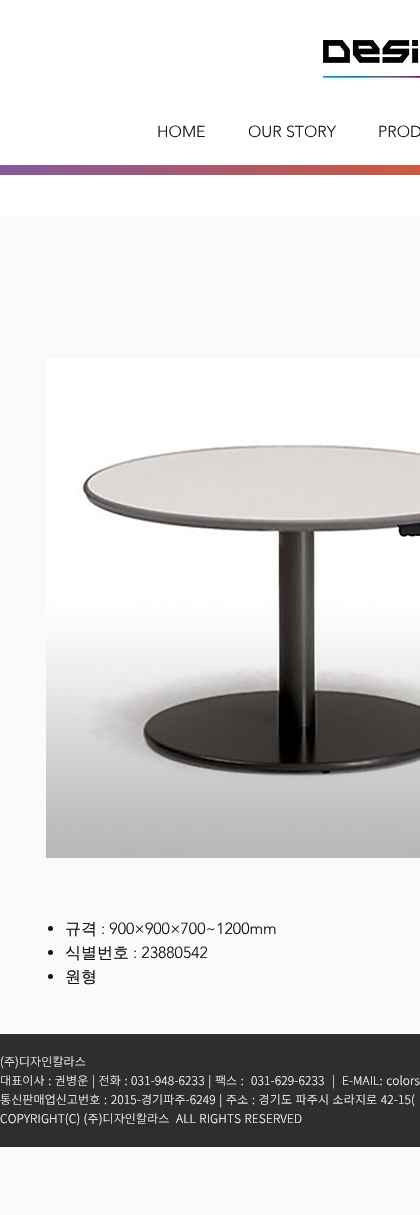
static SkFont makeFont(const char* family, int weight, float size, bool italic = false) {
  SkFontStyle style(weight, SkFontStyle::kNormal_Width,
    italic ? SkFontStyle::kItalic_Slant : SkFontStyle::kUpright_Slant);
  SkFont result(fontMgr->matchFamilyStyle(family, style), size);
  result.setSubpixel(true);
  return result;
}

static void text(SkCanvas* c, const char* s, float x, float y, const SkFont& font, SkColor color) {
  SkPaint ink(SkColor4f::FromColor(color));
  ink.setAntiAlias(true);
  c->drawString(s, x, y, font, ink);
}

static void spacedText(SkCanvas* c, const char* s, float x, float y, const SkFont& font, const SkPaint& ink, float letter, float word) {
  std::vector<SkGlyphID> glyphs(font.countText(s, strlen(s), SkTextEncoding::kUTF8));
  std::vector<float> xs(glyphs.size());
  font.textToGlyphs(s, strlen(s), SkTextEncoding::kUTF8, glyphs);
  font.getXPos(glyphs, xs, x);
  float extra = 0;
  for (size_t i = 0; i < glyphs.size(); i++) {
    xs[i] += extra;
    extra += letter + word * (glyphs[i] == font.unicharToGlyph(' '));
  }
  c->drawTextBlob(SkTextBlob::MakeFromPosHGlyphs(glyphs, xs, y, font), 0, 0, ink);
}

static void box(SkCanvas* c, float l, float t, float r, float b, SkColor color) {
  SkPaint ink(SkColor4f::FromColor(color));
  ink.setAntiAlias(true);
  c->drawRect(SkRect::MakeLTRB(l, t, r, b), ink);
}

static void picture(SkCanvas* c, const char* path, float l, float t, float r, float b) {
  auto image = SkImages::DeferredFromEncodedData(SkData::MakeFromFileName(path));
  c->drawImageRect(image, SkRect::MakeLTRB(l, t, r, b), SkSamplingOptions());
}

void draw(SkCanvas* c) {
  SkPaint paint;
  paint.setAntiAlias(true);
  c->clear(0xfffafafa);
  box(c, 0, 0, 420, 215, 0xffffffff);
  picture(c, "img_01.png", 323, 40, 420, 80);
  SkFont face1 = makeFont("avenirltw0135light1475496", 300, 16);
  text(c, "HOME", 157, 137, face1, 0xff111111);
  text(c, "OUR STORY", 248, 137, face1, 0xff111111);
  text(c, "PROD", 378, 137, face1, 0xff111111);
  {
    const SkColor colors[] = {0xff008afc, 0xff5f5bcd, 0xffff5700, 0xfffff800};
    const float stops[] = {0, 0.22f, 0.58f, 1};
    const SkPoint ends[] = {{-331, -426}, {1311, 766}};
    paint.setShader(SkGradientShader::MakeLinear(ends, colors, stops, 4, SkTileMode::kClamp));
    paint.setAlpha(255);
  }
  c->drawRect(SkRect::MakeLTRB(0, 165, 420, 175), paint);
  picture(c, "img_02.png", 46, 358, 420, 858);
  paint.setShader(nullptr);
  paint.setColor(0xff111111);
  c->drawCircle(50.5f, 928.5f, 2.5f, paint);
  SkFont face2 = makeFont("WenQuanYi Zen Hei", 500, 16);
  text(c, "규격", 65, 934, face2, 0xff111111);
  text(c, ": 900×900×700~1200mm", 101, 934, face1, 0xff111111);
  c->drawCircle(50.5f, 952.5f, 2.5f, paint);
  text(c, "식별번호", 65, 958, face2, 0xff111111);
  text(c, ": 23880542", 133, 958, face1, 0xff111111);
  c->drawCircle(50.5f, 976.5f, 2.5f, paint);
  text(c, "원형", 65, 982, face2, 0xff111111);
  box(c, 0, 1034, 420, 1147, 0xff2f2e2e);
  SkFont face3 = makeFont("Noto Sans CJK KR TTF", 300, 12);
  paint.setColor(0xffffffff);
  spacedText(c, "(주)디자인칼라스", 0, 1066, face3, paint, 0.12f, 0);
  spacedText(c, "대표이사 : 권병운 | 전화 : 031-948-6233 | 팩스 :  031-629-6233  |  E-MAIL: colors", 0, 1085, face3, paint, 0.12f, 0.75f);
  spacedText(c, "통신판매업신고번호 : 2015-경기파주-6249 | 주소 : 경기도 파주시 소라지로 42-15(", 0, 1104, face3, paint, 0.12f, 0.75f);
  spacedText(c, "COPYRIGHT(C) (주)디자인칼라스  ALL RIGHTS RESERVED", 0, 1123, face3, paint, 0.12f, 0.5f);
}
